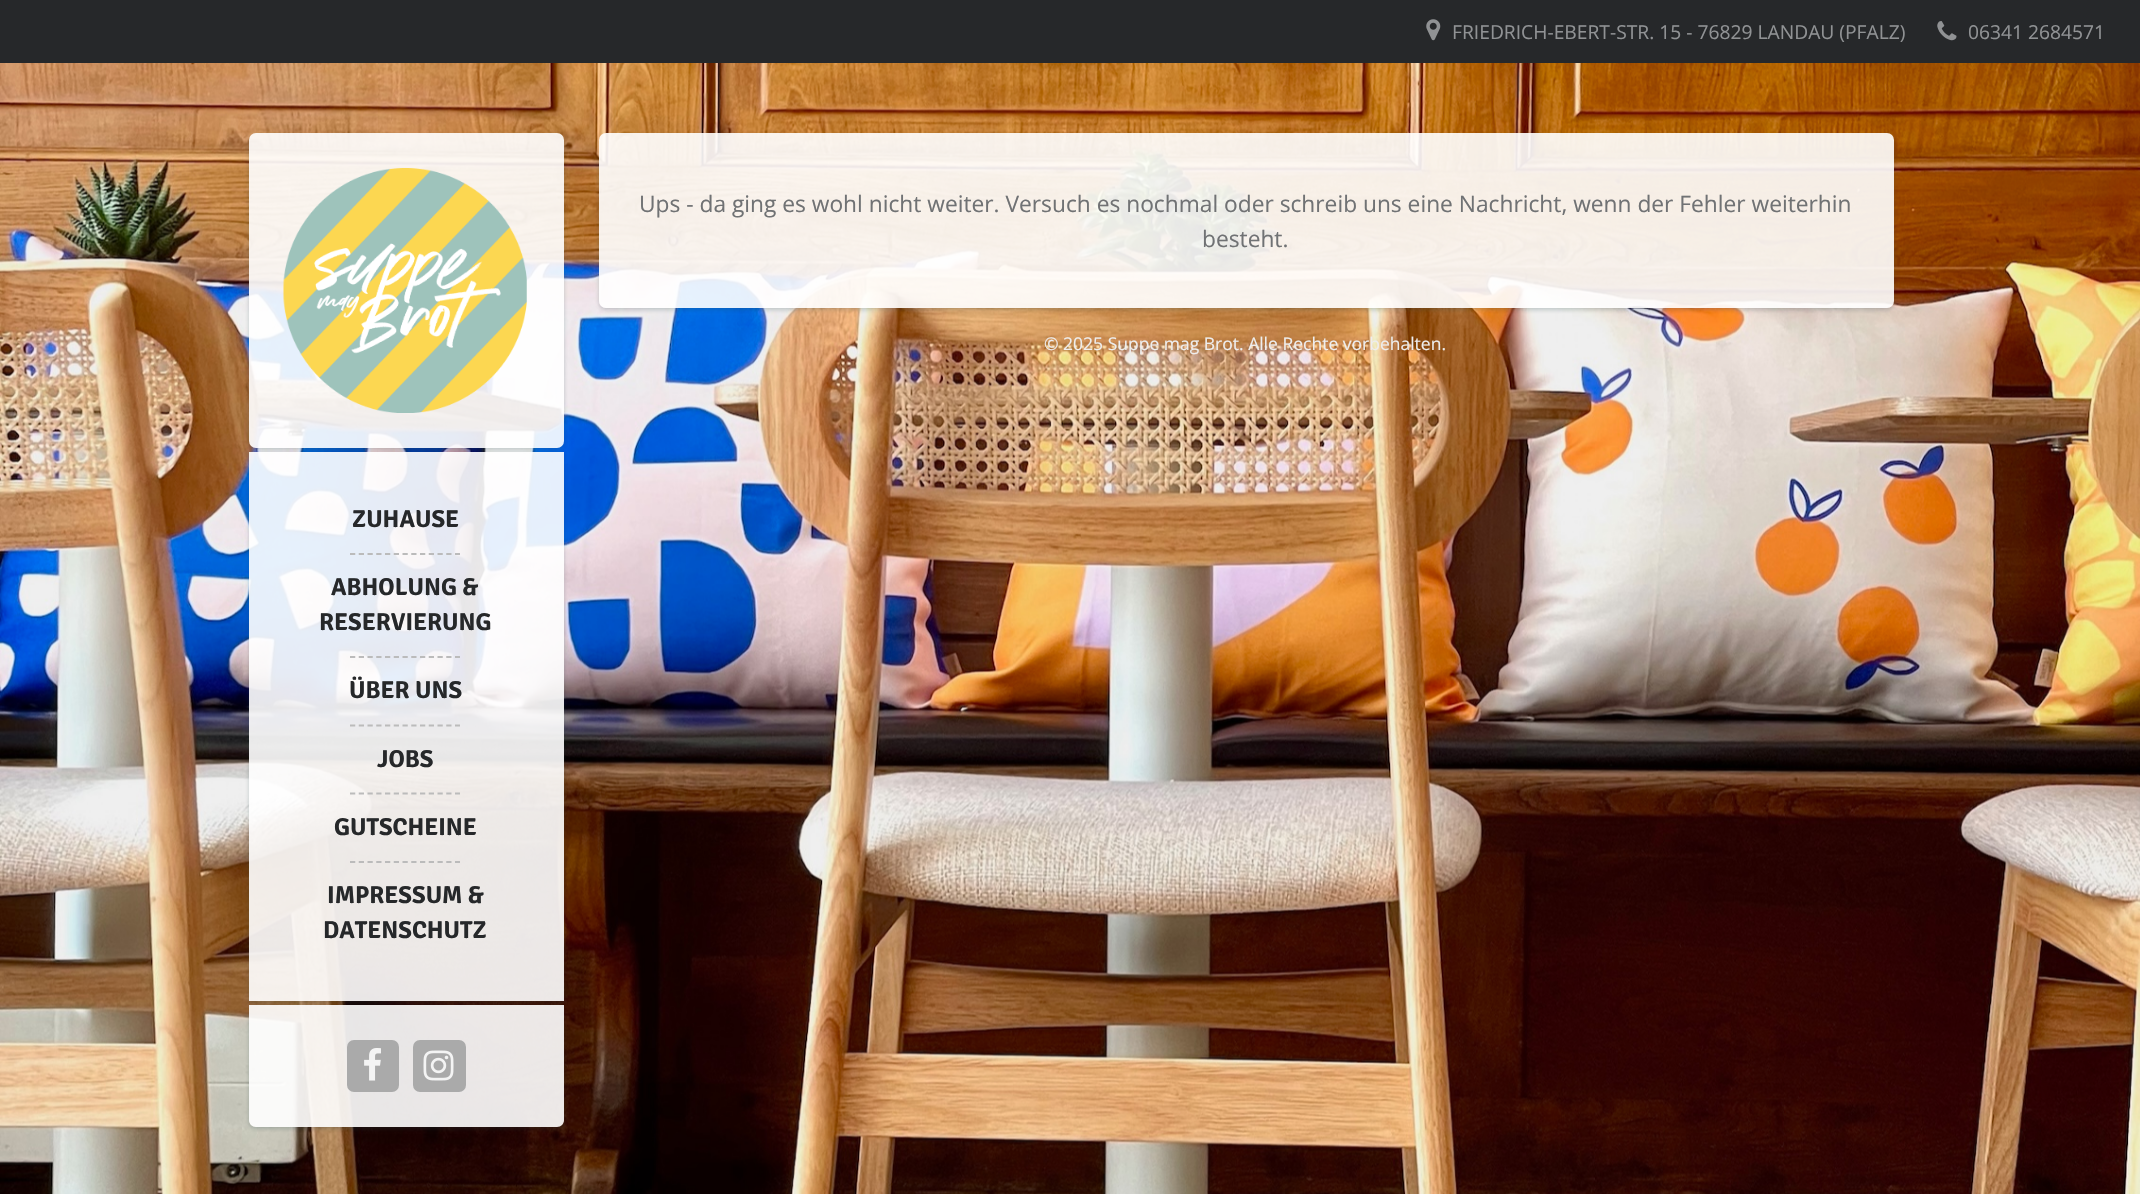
static SkFont makeFont(const char* family, int weight, float size, bool italic = false) {
  SkFontStyle style(weight, SkFontStyle::kNormal_Width,
    italic ? SkFontStyle::kItalic_Slant : SkFontStyle::kUpright_Slant);
  SkFont result(fontMgr->matchFamilyStyle(family, style), size);
  result.setSubpixel(true);
  return result;
}

static void text(SkCanvas* c, const char* s, float x, float y, const SkFont& font, SkColor color) {
  SkPaint ink(SkColor4f::FromColor(color));
  ink.setAntiAlias(true);
  c->drawString(s, x, y, font, ink);
}

static void box(SkCanvas* c, float l, float t, float r, float b, SkColor color) {
  SkPaint ink(SkColor4f::FromColor(color));
  ink.setAntiAlias(true);
  c->drawRect(SkRect::MakeLTRB(l, t, r, b), ink);
}

static void roundBox(SkCanvas* c, float l, float t, float r, float b, float radius, SkColor color) {
  SkPaint ink(SkColor4f::FromColor(color));
  ink.setAntiAlias(true);
  c->drawRoundRect(SkRect::MakeLTRB(l, t, r, b), radius, radius, ink);
}

static void picture(SkCanvas* c, const char* path, float l, float t, float r, float b) {
  auto image = SkImages::DeferredFromEncodedData(SkData::MakeFromFileName(path));
  c->drawImageRect(image, SkRect::MakeLTRB(l, t, r, b), SkSamplingOptions());
}

void draw(SkCanvas* c) {
  SkPaint paint;
  paint.setAntiAlias(true);
  c->clear(0xffffffff);
  picture(c, "img_01.png", 0, 63, 2140, 1194);
  box(c, 0, 0, 2140, 63, 0xff26282a);
  picture(c, "img_02.png", 1426, 19, 1441, 41);
  SkFont face1 = makeFont("Open Sans", 400, 19.25f);
  text(c, "FRIEDRICH-EBERT-STR. 15 - 76829 LANDAU (PFALZ)", 1452, 39, face1, 0xff909294);
  picture(c, "img_03.png", 1937, 21, 1957, 41);
  text(c, "06341 2684571", 1968, 39, face1, 0xff909294);
  c->save();
  c->clipPath(SkPathBuilder(SkPathFillType::kEvenOdd).moveTo(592, 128).lineTo(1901, 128).lineTo(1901, 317).lineTo(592, 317).close().moveTo(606, 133).lineTo(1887, 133).cubicTo(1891, 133, 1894, 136, 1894, 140).lineTo(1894, 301).cubicTo(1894, 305, 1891, 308, 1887, 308).lineTo(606, 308).cubicTo(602, 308, 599, 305, 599, 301).lineTo(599, 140).cubicTo(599, 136, 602, 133, 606, 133).close().detach(), true);
  paint.setColor(0x3b1e4646);
  paint.setMaskFilter(SkMaskFilter::MakeBlur(kNormal_SkBlurStyle, 2));
  c->drawRoundRect(SkRect::MakeLTRB(599, 135, 1894, 310), 7, 7, paint);
  paint.setMaskFilter(nullptr);
  c->restore();
  roundBox(c, 599, 133, 1894, 308, 7, 0xe6ffffff);
  SkFont face2 = makeFont("Open Sans", 400, 22.75f);
  text(c, "Ups - da ging es wohl nicht weiter. Versuch es nochmal oder schreib uns eine Nachricht, wenn der Fehler weiterhin", 639, 212, face2, 0xff707274);
  text(c, "besteht.", 1202, 247, face2, 0xff707274);
  SkFont face3 = makeFont("Open Sans", 400, 17.5f);
  text(c, "© 2025 Suppe mag Brot. Alle Rechte vorbehalten.", 1044, 350, face3, 0xffeeeeee);
  c->save();
  c->clipPath(SkPathBuilder(SkPathFillType::kEvenOdd).moveTo(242, 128).lineTo(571, 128).lineTo(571, 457).lineTo(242, 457).close().moveTo(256, 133).lineTo(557, 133).cubicTo(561, 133, 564, 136, 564, 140).lineTo(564, 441).cubicTo(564, 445, 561, 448, 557, 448).lineTo(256, 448).cubicTo(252, 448, 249, 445, 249, 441).lineTo(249, 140).cubicTo(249, 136, 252, 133, 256, 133).close().detach(), true);
  paint.setMaskFilter(SkMaskFilter::MakeBlur(kNormal_SkBlurStyle, 2));
  c->drawRoundRect(SkRect::MakeLTRB(249, 135, 564, 450), 7, 7, paint);
  paint.setMaskFilter(nullptr);
  c->restore();
  roundBox(c, 249, 133, 564, 448, 7, 0xe6ffffff);
  picture(c, "img_04.png", 283, 168, 527, 413);
  c->save();
  c->clipPath(SkPathBuilder(SkPathFillType::kEvenOdd).moveTo(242, 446).lineTo(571, 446).lineTo(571, 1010).lineTo(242, 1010).close().moveTo(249, 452).lineTo(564, 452).lineTo(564, 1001).lineTo(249, 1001).close().detach(), true);
  paint.setMaskFilter(SkMaskFilter::MakeBlur(kNormal_SkBlurStyle, 2));
  c->drawRect(SkRect::MakeLTRB(249, 453, 564, 1003), paint);
  paint.setMaskFilter(nullptr);
  c->restore();
  box(c, 249, 452, 564, 1001, 0xe6ffffff);
  SkFont face4 = makeFont("Signika Negative", 700, 24.5f);
  text(c, "ZUHAUSE", 352, 527, face4, 0xff26282a);
  paint.setStyle(SkPaint::kStroke_Style);
  paint.setStrokeWidth(1.8f);
  paint.setColor(0xffbbbbbb);
  paint.setPathEffect(SkDashPathEffect::Make({{5.25f, 3.5f}}, 0));
  c->drawPath(SkPathBuilder().moveTo(350, 554).lineTo(460, 554).detach(), paint);
  paint.setPathEffect(nullptr);
  text(c, "ABHOLUNG &", 331, 595, face4, 0xff26282a);
  text(c, "RESERVIERUNG", 319, 630, face4, 0xff26282a);
  paint.setPathEffect(SkDashPathEffect::Make({{5.25f, 3.5f}}, 0));
  c->drawPath(SkPathBuilder().moveTo(350, 657).lineTo(460, 657).detach(), paint);
  paint.setPathEffect(nullptr);
  text(c, "ÜBER UNS", 349, 698, face4, 0xff26282a);
  paint.setPathEffect(SkDashPathEffect::Make({{5.25f, 3.5f}}, 0));
  c->drawPath(SkPathBuilder().moveTo(350, 725.5f).lineTo(460, 725.5f).detach(), paint);
  paint.setPathEffect(nullptr);
  text(c, "JOBS", 377, 767, face4, 0xff26282a);
  paint.setPathEffect(SkDashPathEffect::Make({{5.25f, 3.5f}}, 0));
  c->drawPath(SkPathBuilder().moveTo(350, 793.5f).lineTo(460, 793.5f).detach(), paint);
  paint.setPathEffect(nullptr);
  text(c, "GUTSCHEINE", 334, 835, face4, 0xff26282a);
  paint.setPathEffect(SkDashPathEffect::Make({{5.25f, 3.5f}}, 0));
  c->drawPath(SkPathBuilder().moveTo(350, 862).lineTo(460, 862).detach(), paint);
  paint.setPathEffect(nullptr);
  text(c, "IMPRESSUM &", 327, 903, face4, 0xff26282a);
  text(c, "DATENSCHUTZ", 323, 938, face4, 0xff26282a);
  c->save();
  c->clipPath(SkPathBuilder(SkPathFillType::kEvenOdd).moveTo(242, 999).lineTo(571, 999).lineTo(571, 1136).lineTo(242, 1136).close().moveTo(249, 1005).lineTo(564, 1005).lineTo(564, 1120).cubicTo(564, 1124, 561, 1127, 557, 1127).lineTo(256, 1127).cubicTo(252, 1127, 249, 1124, 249, 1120).close().detach(), true);
  paint.setStyle(SkPaint::kFill_Style);
  paint.setColor(0x3b1e4646);
  paint.setMaskFilter(SkMaskFilter::MakeBlur(kNormal_SkBlurStyle, 2));
  c->drawRoundRect(SkRect::MakeLTRB(249, 1006, 564, 1129), 7, 7, paint);
  paint.setMaskFilter(nullptr);
  c->restore();
  paint.setColor(0xe6ffffff);
  c->drawPath(SkPathBuilder().moveTo(249, 1005).lineTo(564, 1005).lineTo(564, 1120).cubicTo(564, 1124, 561, 1127, 557, 1127).lineTo(256, 1127).cubicTo(252, 1127, 249, 1124, 249, 1120).close().detach(), paint);
  roundBox(c, 347, 1040, 399, 1092, 7, 0xffaaaaaa);
  picture(c, "img_05.png", 364, 1048, 381, 1081);
  roundBox(c, 413, 1040, 466, 1092, 7, 0xffaaaaaa);
  picture(c, "img_06.png", 423, 1050, 454, 1081);
}
